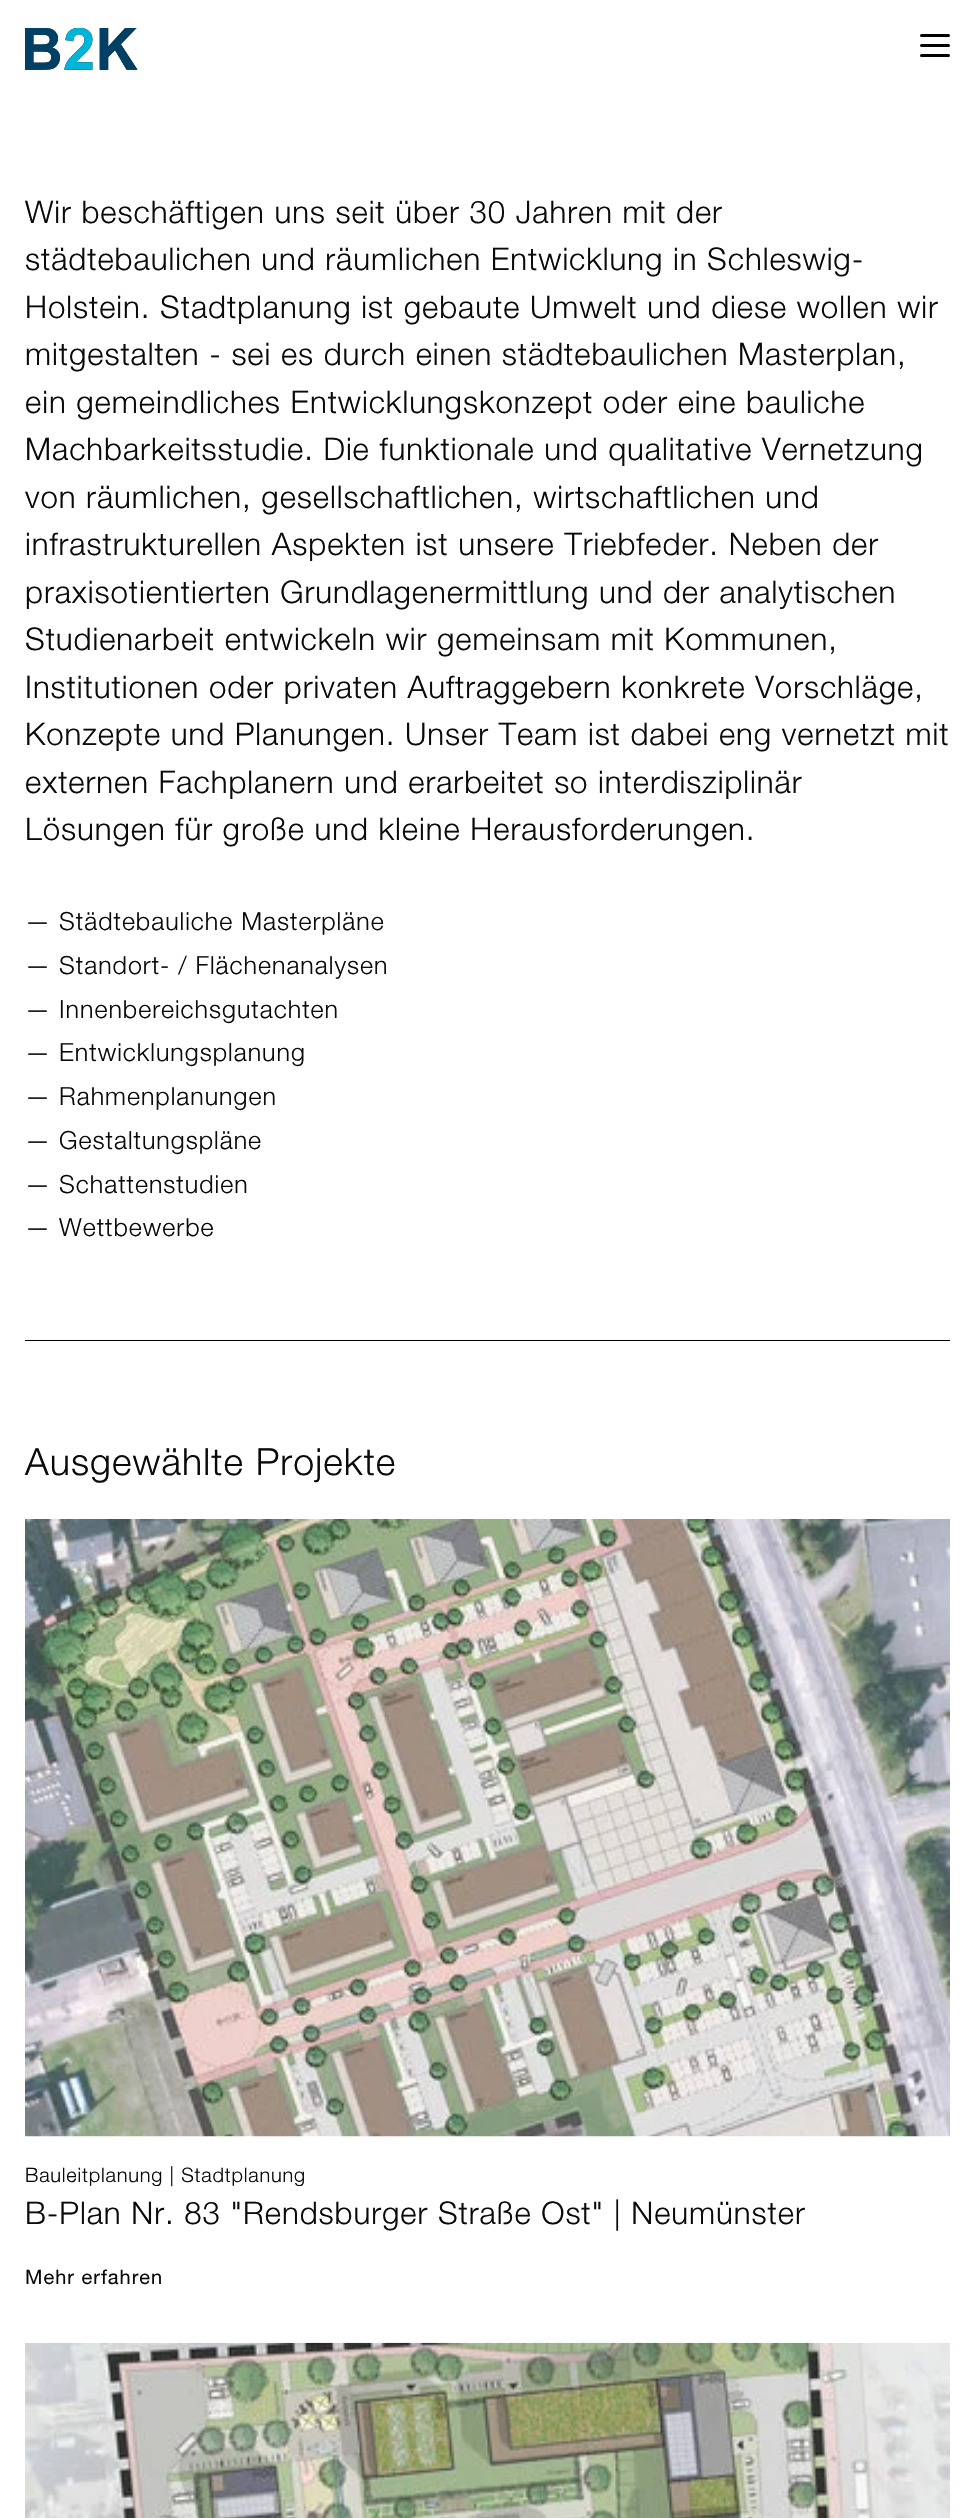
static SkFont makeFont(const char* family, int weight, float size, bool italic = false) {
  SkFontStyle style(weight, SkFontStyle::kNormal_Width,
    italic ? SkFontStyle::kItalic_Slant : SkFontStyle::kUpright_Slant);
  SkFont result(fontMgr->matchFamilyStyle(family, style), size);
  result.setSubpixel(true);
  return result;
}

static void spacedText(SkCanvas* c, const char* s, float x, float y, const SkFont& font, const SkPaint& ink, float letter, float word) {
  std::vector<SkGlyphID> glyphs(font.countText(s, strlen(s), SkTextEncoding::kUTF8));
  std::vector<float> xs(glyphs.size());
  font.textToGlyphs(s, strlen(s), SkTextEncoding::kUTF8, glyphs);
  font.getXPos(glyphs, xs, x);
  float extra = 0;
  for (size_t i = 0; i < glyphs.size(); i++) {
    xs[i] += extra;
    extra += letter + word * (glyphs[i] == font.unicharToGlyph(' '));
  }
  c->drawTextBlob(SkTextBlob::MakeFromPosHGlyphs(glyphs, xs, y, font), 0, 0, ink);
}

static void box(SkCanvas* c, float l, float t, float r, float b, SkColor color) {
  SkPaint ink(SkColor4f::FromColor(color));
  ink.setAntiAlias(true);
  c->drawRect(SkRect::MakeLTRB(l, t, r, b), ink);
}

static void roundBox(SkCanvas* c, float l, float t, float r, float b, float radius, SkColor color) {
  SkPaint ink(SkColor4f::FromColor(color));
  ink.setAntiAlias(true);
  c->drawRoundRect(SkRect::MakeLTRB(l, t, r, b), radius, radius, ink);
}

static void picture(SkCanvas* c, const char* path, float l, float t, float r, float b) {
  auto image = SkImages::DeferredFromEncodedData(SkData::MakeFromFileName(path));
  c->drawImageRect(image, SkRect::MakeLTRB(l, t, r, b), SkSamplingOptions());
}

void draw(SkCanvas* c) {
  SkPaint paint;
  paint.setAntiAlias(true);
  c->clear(0xffffffff);
  picture(c, "img_01.png", 25, 28, 138, 70);
  roundBox(c, 920, 44, 950, 47, 1.5f, 0xff000000);
  roundBox(c, 920, 34, 950, 37, 1.5f, 0xff000000);
  roundBox(c, 920, 54, 950, 57, 1.5f, 0xff000000);
  SkFont face1 = makeFont("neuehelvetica", 300, 31.25f);
  paint.setColor(0xff0a0a0a);
  spacedText(c, "Wir beschäftigen uns seit über 30 Jahren mit der", 25, 223, face1, paint, 0.95f, 0);
  spacedText(c, "städtebaulichen und räumlichen Entwicklung in Schleswig-", 25, 270, face1, paint, 0.95f, 0);
  spacedText(c, "Holstein. Stadtplanung ist gebaute Umwelt und diese wollen wir", 25, 318, face1, paint, 0.95f, 0);
  spacedText(c, "mitgestalten - sei es durch einen städtebaulichen Masterplan,", 25, 365, face1, paint, 0.95f, 0);
  spacedText(c, "ein gemeindliches Entwicklungskonzept oder eine bauliche", 25, 413, face1, paint, 0.95f, 0);
  spacedText(c, "Machbarkeitsstudie. Die funktionale und qualitative Vernetzung", 25, 460, face1, paint, 0.95f, 0);
  spacedText(c, "von räumlichen, gesellschaftlichen, wirtschaftlichen und", 25, 508, face1, paint, 0.95f, 0);
  spacedText(c, "infrastrukturellen Aspekten ist unsere Triebfeder. Neben der", 25, 555, face1, paint, 0.95f, 0);
  spacedText(c, "praxisotientierten Grundlagenermittlung und der analytischen", 25, 603, face1, paint, 0.95f, 0);
  spacedText(c, "Studienarbeit entwickeln wir gemeinsam mit Kommunen,", 25, 650, face1, paint, 0.95f, 0);
  spacedText(c, "Institutionen oder privaten Auftraggebern konkrete Vorschläge,", 25, 698, face1, paint, 0.95f, 0);
  spacedText(c, "Konzepte und Planungen. Unser Team ist dabei eng vernetzt mit", 25, 745, face1, paint, 0.95f, 0);
  spacedText(c, "externen Fachplanern und erarbeitet so interdisziplinär", 25, 793, face1, paint, 0.95f, 0);
  spacedText(c, "Lösungen für große und kleine Herausforderungen.", 25, 840, face1, paint, 0.95f, 0);
  SkFont face2 = makeFont("neuehelvetica", 300, 25);
  spacedText(c, "—", 25, 930, face2, paint, 1, 0);
  spacedText(c, "Städtebauliche Masterpläne", 59, 930, face2, paint, 1, 0);
  spacedText(c, "—", 25, 974, face2, paint, 1, 0);
  spacedText(c, "Standort- / Flächenanalysen", 59, 974, face2, paint, 1, 0);
  spacedText(c, "—", 25, 1018, face2, paint, 1, 0);
  spacedText(c, "Innenbereichsgutachten", 59, 1018, face2, paint, 1, 0);
  spacedText(c, "—", 25, 1061, face2, paint, 1, 0);
  spacedText(c, "Entwicklungsplanung", 59, 1061, face2, paint, 1, 0);
  spacedText(c, "—", 25, 1105, face2, paint, 1, 0);
  spacedText(c, "Rahmenplanungen", 59, 1105, face2, paint, 1, 0);
  spacedText(c, "—", 25, 1149, face2, paint, 1, 0);
  spacedText(c, "Gestaltungspläne", 59, 1149, face2, paint, 1, 0);
  spacedText(c, "—", 25, 1193, face2, paint, 1, 0);
  spacedText(c, "Schattenstudien", 59, 1193, face2, paint, 1, 0);
  spacedText(c, "—", 25, 1236, face2, paint, 1, 0);
  spacedText(c, "Wettbewerbe", 59, 1236, face2, paint, 1, 0);
  box(c, 25, 1340, 950, 1341, 0xff000000);
  SkFont face3 = makeFont("neuehelvetica", 300, 37.5f);
  spacedText(c, "Ausgewählte Projekte", 25, 1475, face3, paint, 1.1f, 0);
  picture(c, "img_02.png", 25, 1519, 950, 2137);
  SkFont face4 = makeFont("neuehelvetica", 300, 20);
  spacedText(c, "Bauleitplanung | Stadtplanung", 25, 2182, face4, paint, 0.8f, 0);
  spacedText(c, "B-Plan Nr. 83 \"Rendsburger Straße Ost\" | Neumünster", 25, 2224, face1, paint, 0.95f, 0);
  SkFont face5 = makeFont("neuehelvetica", 400, 20);
  spacedText(c, "Mehr erfahren", 25, 2284, face5, paint, 1, 0);
  picture(c, "img_03.png", 25, 2342, 950, 2518);
}
